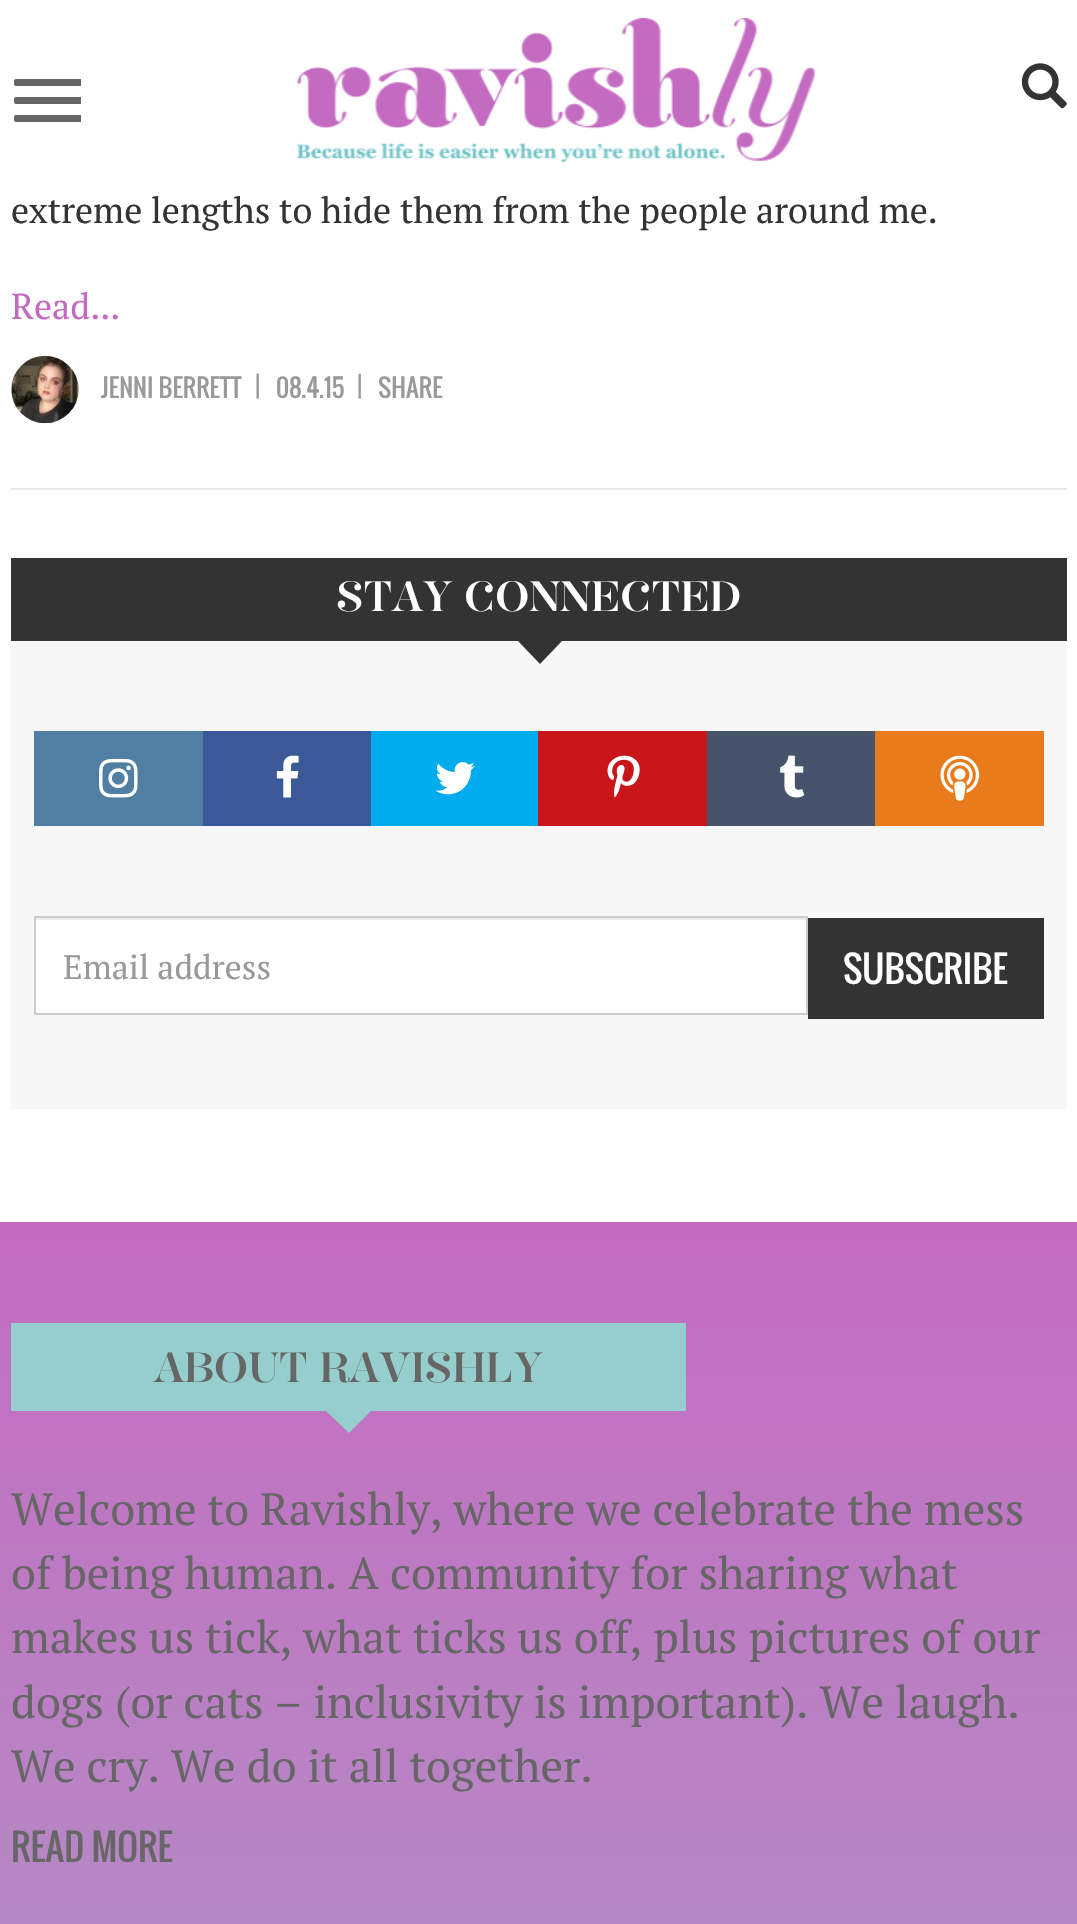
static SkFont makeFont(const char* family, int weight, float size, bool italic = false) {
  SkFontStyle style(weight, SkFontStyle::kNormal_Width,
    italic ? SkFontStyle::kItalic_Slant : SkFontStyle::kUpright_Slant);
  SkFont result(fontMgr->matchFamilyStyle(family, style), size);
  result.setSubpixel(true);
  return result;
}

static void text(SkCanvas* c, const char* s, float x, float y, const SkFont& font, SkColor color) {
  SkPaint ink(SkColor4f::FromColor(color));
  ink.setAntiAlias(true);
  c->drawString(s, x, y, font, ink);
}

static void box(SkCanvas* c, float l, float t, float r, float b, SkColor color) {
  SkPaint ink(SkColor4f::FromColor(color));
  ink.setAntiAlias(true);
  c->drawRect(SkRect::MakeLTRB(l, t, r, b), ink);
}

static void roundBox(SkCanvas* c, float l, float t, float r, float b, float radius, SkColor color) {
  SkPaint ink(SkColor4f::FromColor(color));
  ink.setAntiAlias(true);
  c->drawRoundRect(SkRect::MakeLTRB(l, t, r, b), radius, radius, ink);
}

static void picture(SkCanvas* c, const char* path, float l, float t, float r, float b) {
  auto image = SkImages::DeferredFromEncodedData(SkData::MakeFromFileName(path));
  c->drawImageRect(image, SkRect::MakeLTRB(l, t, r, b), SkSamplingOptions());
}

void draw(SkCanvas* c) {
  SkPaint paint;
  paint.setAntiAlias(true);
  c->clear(0xffffffff);
  roundBox(c, 14, 79, 81, 86, 2, 0xff666666);
  box(c, 79, 79, 81, 86, 0xff666666);
  roundBox(c, 14, 97, 81, 104, 2, 0xff666666);
  box(c, 79, 97, 81, 104, 0xff666666);
  roundBox(c, 14, 115, 81, 122, 2, 0xff666666);
  box(c, 79, 115, 81, 122, 0xff666666);
  picture(c, "img_01.png", 297, 18, 815, 163);
  picture(c, "img_02.png", 1021, 63, 1067, 109);
  SkFont face1 = makeFont("PT Serif", 400, 36);
  text(c, "extreme lengths to hide them from the people around me.", 11, 223, face1, 0xff333333);
  text(c, "Read...", 11, 319, face1, 0xffc46bc1);
  picture(c, "img_03.png", 11, 355, 79, 424);
  SkFont face2 = makeFont("Oswald", 400, 24.75f);
  text(c, "JENNI BERRETT", 101, 398, face2, 0xff999999);
  text(c, "|", 255, 397, face2, 0xff999999);
  text(c, "08.4.15", 276, 398, face2, 0xff999999);
  text(c, "|", 357, 397, face2, 0xff999999);
  text(c, "SHARE", 378, 398, face2, 0xff999999);
  box(c, 11, 488, 1067, 490, 0xffeaeaea);
  box(c, 11, 641, 1067, 1109, 0xfff7f7f7);
  box(c, 11, 558, 1067, 641, 0xff333333);
  SkFont face3 = makeFont("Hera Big", 400, 36);
  text(c, "STAY CONNECTED", 336, 611, face3, 0xffffffff);
  paint.setColor(0xff333333);
  c->drawPath(SkPathBuilder().moveTo(518, 641).lineTo(562, 641).lineTo(540, 664).close().detach(), paint);
  box(c, 34, 731, 203, 826, 0xff517fa4);
  picture(c, "img_04.png", 99, 758, 138, 798);
  box(c, 203, 731, 371, 826, 0xff3b5998);
  picture(c, "img_05.png", 276, 755, 299, 798);
  box(c, 371, 731, 538, 826, 0xff00aced);
  picture(c, "img_06.png", 435, 762, 475, 795);
  box(c, 538, 731, 707, 826, 0xffc8161a);
  picture(c, "img_07.png", 607, 755, 640, 798);
  box(c, 707, 731, 875, 826, 0xff47526b);
  picture(c, "img_08.png", 780, 755, 805, 798);
  box(c, 875, 731, 1044, 826, 0xffea7b1c);
  picture(c, "img_09.png", 940, 755, 980, 801);
  box(c, 36, 920, 806, 1013, 0xffffffff);
  box(c, 36, 918, 806, 920, 0xffececec);
  paint.setStyle(SkPaint::kStroke_Style);
  paint.setStrokeWidth(2);
  paint.setColor(0xffcccccc);
  c->drawRect(SkRect::MakeLTRB(35, 917, 807, 1014), paint);
  SkFont face4 = makeFont("PT Serif", 400, 33.75f);
  text(c, "Email address", 63, 979, face4, 0xff999999);
  box(c, 808, 918, 1044, 1019, 0xff333333);
  SkFont face5 = makeFont("Oswald", 400, 36);
  text(c, "SUBSCRIBE", 843, 984, face5, 0xffffffff);
  paint.setStyle(SkPaint::kFill_Style);
  {
    const SkColor colors[] = {0xffc46bc1, 0xff96cdcd};
    const float stops[] = {0, 1};
    const SkPoint ends[] = {{539, 1222}, {539, 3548}};
    paint.setShader(SkGradientShader::MakeLinear(ends, colors, stops, 2, SkTileMode::kClamp));
    paint.setAlpha(255);
  }
  c->drawRect(SkRect::MakeLTRB(0, 1222, 1077, 1924), paint);
  box(c, 11, 1323, 686, 1411, 0xff96cdcd);
  text(c, "ABOUT RAVISHLY", 154, 1382, face3, 0xff666666);
  paint.setShader(nullptr);
  paint.setColor(0xff96cdcd);
  c->drawPath(SkPathBuilder().moveTo(326, 1411).lineTo(371, 1411).lineTo(349, 1433).close().detach(), paint);
  SkFont face6 = makeFont("PT Serif", 400, 45);
  text(c, "Welcome to Ravishly, where we celebrate the mess", 11, 1525, face6, 0xff666666);
  text(c, "of being human. A community for sharing what", 11, 1589, face6, 0xff666666);
  text(c, "makes us tick, what ticks us off, plus pictures of our", 11, 1653, face6, 0xff666666);
  text(c, "dogs (or cats – inclusivity is important). We laugh.", 11, 1718, face6, 0xff666666);
  text(c, "We cry. We do it all together.", 11, 1782, face6, 0xff666666);
  text(c, "READ MORE", 11, 1862, face5, 0xff666666);
}
